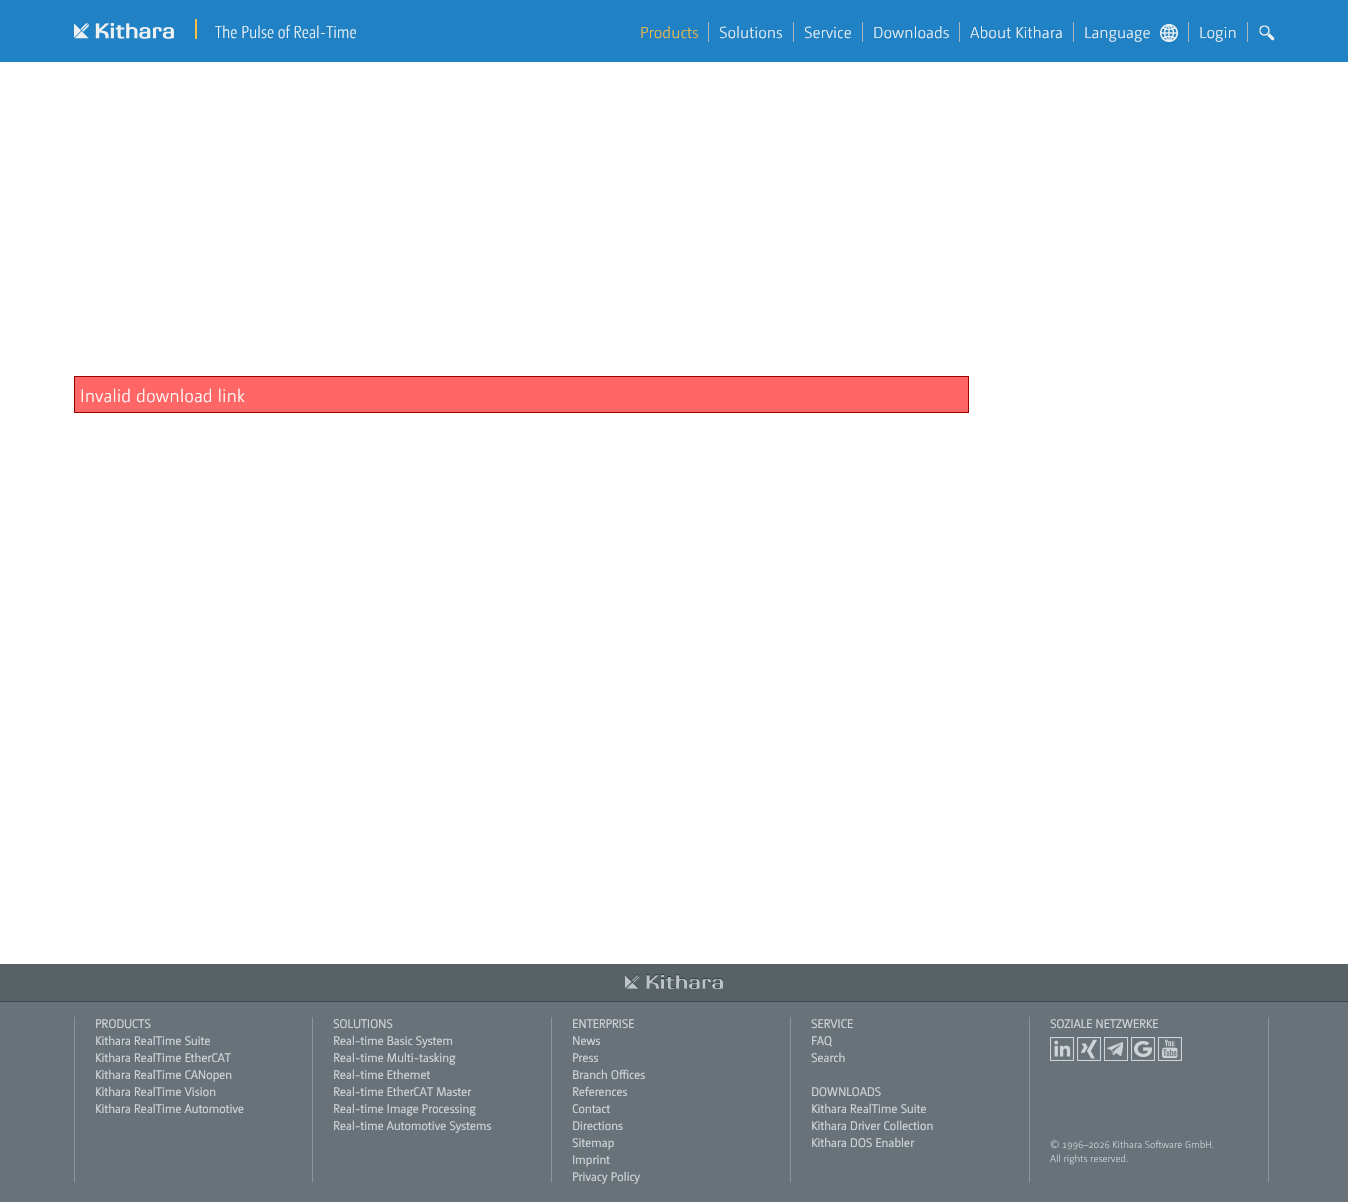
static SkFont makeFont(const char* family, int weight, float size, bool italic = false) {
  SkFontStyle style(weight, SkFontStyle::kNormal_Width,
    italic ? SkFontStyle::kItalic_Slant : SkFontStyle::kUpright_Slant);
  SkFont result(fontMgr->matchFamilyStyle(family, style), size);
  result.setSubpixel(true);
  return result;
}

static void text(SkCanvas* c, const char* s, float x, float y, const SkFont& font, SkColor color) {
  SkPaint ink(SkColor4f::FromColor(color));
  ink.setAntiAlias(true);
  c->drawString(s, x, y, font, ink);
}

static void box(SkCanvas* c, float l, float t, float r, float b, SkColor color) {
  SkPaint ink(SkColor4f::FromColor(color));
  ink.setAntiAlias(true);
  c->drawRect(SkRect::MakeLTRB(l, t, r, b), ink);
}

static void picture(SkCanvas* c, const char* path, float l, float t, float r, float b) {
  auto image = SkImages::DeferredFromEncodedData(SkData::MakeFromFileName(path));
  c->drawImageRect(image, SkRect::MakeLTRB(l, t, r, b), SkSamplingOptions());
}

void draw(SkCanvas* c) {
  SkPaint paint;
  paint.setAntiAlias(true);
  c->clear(0xffffffff);
  box(c, 0, 0, 1348, 62, 0xff2081c4);
  picture(c, "img_01.png", 74, 23, 174, 39);
  box(c, 195, 19, 197, 39, 0xfffbbc41);
  SkFont face1 = makeFont("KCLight", 300, 17);
  text(c, "The Pulse of Real-Time", 215, 38, face1, 0xffeef1f2);
  box(c, 708, 22, 709, 42, 0xffabb4b9);
  SkFont face2 = makeFont("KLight", 300, 16);
  text(c, "Products", 640, 38, face2, 0xfffbbc41);
  box(c, 793, 22, 794, 42, 0xffabb4b9);
  text(c, "Solutions", 719, 38, face2, 0xffeef1f2);
  box(c, 862, 22, 863, 42, 0xffabb4b9);
  text(c, "Service", 804, 38, face2, 0xffeef1f2);
  box(c, 959, 22, 960, 42, 0xffabb4b9);
  text(c, "Downloads", 873, 38, face2, 0xffeef1f2);
  box(c, 1073, 22, 1074, 42, 0xffabb4b9);
  text(c, "About Kithara", 970, 38, face2, 0xffeef1f2);
  box(c, 1188, 22, 1189, 42, 0xffabb4b9);
  text(c, "Language", 1084, 38, face2, 0xffeef1f2);
  picture(c, "img_02.png", 1160, 24, 1178, 42);
  box(c, 1247, 22, 1248, 42, 0xffabb4b9);
  text(c, "Login", 1199, 38, face2, 0xffeef1f2);
  picture(c, "img_03.png", 1259, 25, 1275, 41);
  paint.setColor(0xffff6666);
  c->drawRect(SkRect::MakeLTRB(74.5f, 376.5f, 968.5f, 412.5f), paint);
  paint.setStyle(SkPaint::kStroke_Style);
  paint.setStrokeWidth(1);
  paint.setColor(0xff990000);
  c->drawRect(SkRect::MakeLTRB(74.5f, 376.5f, 968.5f, 412.5f), paint);
  SkFont face3 = makeFont("KLight", 300, 18);
  text(c, "Invalid download link", 80, 402, face3, 0xffffffff);
  box(c, 0, 1002, 1348, 1202, 0xff687278);
  box(c, 0, 964, 1348, 1001, 0xff576166);
  box(c, 0, 1001, 1348, 1002, 0xff40494d);
  picture(c, "img_04.png", 625, 974, 723, 989);
  box(c, 312, 1017, 313, 1182, 0xff8a9499);
  box(c, 74, 1017, 75, 1182, 0xff8a9499);
  SkFont face4 = makeFont("KLight", 700, 12);
  text(c, "PRODUCTS", 95, 1028, face4, 0xffcdd3d7);
  text(c, "Kithara RealTime Suite", 95, 1045, face4, 0xffcdd3d7);
  text(c, "Kithara RealTime EtherCAT", 95, 1062, face4, 0xffcdd3d7);
  text(c, "Kithara RealTime CANopen", 95, 1079, face4, 0xffcdd3d7);
  text(c, "Kithara RealTime Vision", 95, 1096, face4, 0xffcdd3d7);
  text(c, "Kithara RealTime Automotive", 95, 1113, face4, 0xffcdd3d7);
  box(c, 551, 1017, 552, 1182, 0xff8a9499);
  text(c, "SOLUTIONS", 333, 1028, face4, 0xffcdd3d7);
  text(c, "Real-time Basic System", 333, 1045, face4, 0xffcdd3d7);
  text(c, "Real-time Multi-tasking", 333, 1062, face4, 0xffcdd3d7);
  text(c, "Real-time Ethernet", 333, 1079, face4, 0xffcdd3d7);
  text(c, "Real-time EtherCAT Master", 333, 1096, face4, 0xffcdd3d7);
  text(c, "Real-time Image Processing", 333, 1113, face4, 0xffcdd3d7);
  text(c, "Real-time Automotive Systems", 333, 1130, face4, 0xffcdd3d7);
  box(c, 790, 1017, 791, 1182, 0xff8a9499);
  text(c, "ENTERPRISE", 572, 1028, face4, 0xffcdd3d7);
  text(c, "News", 572, 1045, face4, 0xffcdd3d7);
  text(c, "Press", 572, 1062, face4, 0xffcdd3d7);
  text(c, "Branch Offices", 572, 1079, face4, 0xffcdd3d7);
  text(c, "References", 572, 1096, face4, 0xffcdd3d7);
  text(c, "Contact", 572, 1113, face4, 0xffcdd3d7);
  text(c, "Directions", 572, 1130, face4, 0xffcdd3d7);
  text(c, "Sitemap", 572, 1147, face4, 0xffcdd3d7);
  text(c, "Imprint", 572, 1164, face4, 0xffcdd3d7);
  text(c, "Privacy Policy", 572, 1181, face4, 0xffcdd3d7);
  box(c, 1029, 1017, 1030, 1182, 0xff8a9499);
  text(c, "SERVICE", 811, 1028, face4, 0xffcdd3d7);
  text(c, "FAQ", 811, 1045, face4, 0xffcdd3d7);
  text(c, "Search", 811, 1062, face4, 0xffcdd3d7);
  text(c, "DOWNLOADS", 811, 1096, face4, 0xffcdd3d7);
  text(c, "Kithara RealTime Suite", 811, 1113, face4, 0xffcdd3d7);
  text(c, "Kithara Driver Collection", 811, 1130, face4, 0xffcdd3d7);
  text(c, "Kithara DOS Enabler", 811, 1147, face4, 0xffcdd3d7);
  box(c, 1268, 1017, 1269, 1182, 0xff8a9499);
  text(c, "SOZIALE NETZWERKE", 1050, 1028, face4, 0xffcdd3d7);
  picture(c, "img_05.png", 1050, 1037, 1074, 1061);
  picture(c, "img_06.png", 1077, 1037, 1101, 1061);
  picture(c, "img_07.png", 1104, 1037, 1128, 1061);
  picture(c, "img_08.png", 1131, 1037, 1155, 1061);
  picture(c, "img_09.png", 1158, 1037, 1182, 1061);
  SkFont face5 = makeFont("KLight", 300, 10);
  text(c, "© 1996–2026 Kithara Software GmbH.", 1050, 1148, face5, 0xffcdd3d7);
  text(c, "All rights reserved.", 1050, 1162, face5, 0xffcdd3d7);
}
